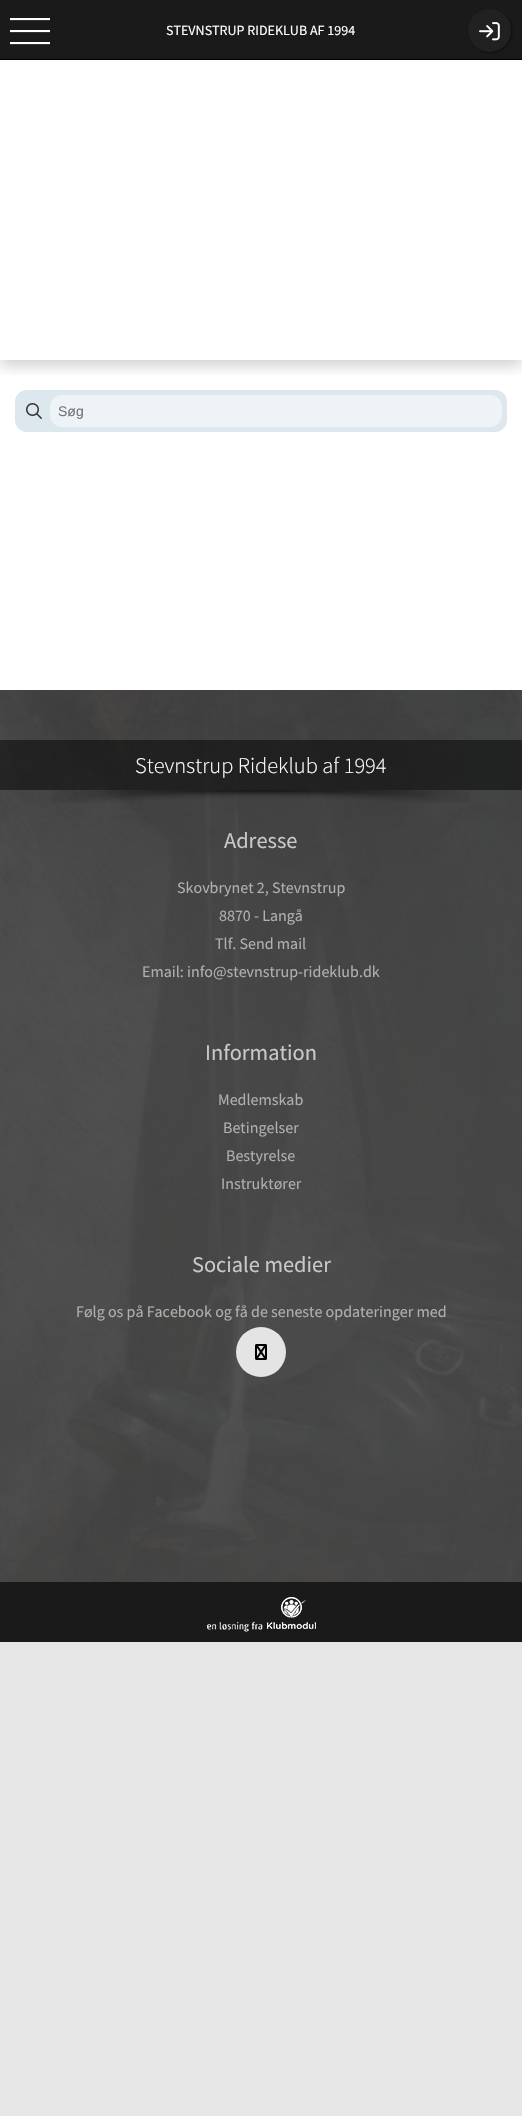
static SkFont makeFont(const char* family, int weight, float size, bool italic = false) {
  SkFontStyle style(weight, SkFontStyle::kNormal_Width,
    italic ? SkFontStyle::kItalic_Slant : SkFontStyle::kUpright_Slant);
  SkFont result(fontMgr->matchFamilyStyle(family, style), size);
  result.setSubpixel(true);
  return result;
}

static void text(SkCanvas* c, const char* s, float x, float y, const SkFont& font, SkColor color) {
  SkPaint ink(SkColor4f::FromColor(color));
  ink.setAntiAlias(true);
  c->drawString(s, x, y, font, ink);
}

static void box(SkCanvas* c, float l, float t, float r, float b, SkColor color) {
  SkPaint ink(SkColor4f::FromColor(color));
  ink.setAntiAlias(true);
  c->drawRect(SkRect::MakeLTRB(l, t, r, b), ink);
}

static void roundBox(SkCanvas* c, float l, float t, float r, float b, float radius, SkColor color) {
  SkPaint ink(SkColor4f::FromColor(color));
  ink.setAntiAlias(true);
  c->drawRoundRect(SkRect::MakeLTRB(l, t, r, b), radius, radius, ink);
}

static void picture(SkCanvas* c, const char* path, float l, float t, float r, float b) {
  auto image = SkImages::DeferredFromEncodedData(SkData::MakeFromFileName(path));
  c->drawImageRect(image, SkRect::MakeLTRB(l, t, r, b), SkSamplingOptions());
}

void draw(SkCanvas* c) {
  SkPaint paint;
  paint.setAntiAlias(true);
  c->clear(0xffe6e6e6);
  box(c, 0, 60, 522, 690, 0xffffffff);
  c->save();
  c->clipRect(SkRect::MakeLTRB(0, 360, 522, 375));
  paint.setColor(0x33000000);
  paint.setMaskFilter(SkMaskFilter::MakeBlur(kNormal_SkBlurStyle, 7.5f));
  c->drawRect(SkRect::MakeLTRB(0, 65, 522, 365), paint);
  paint.setMaskFilter(nullptr);
  c->restore();
  box(c, 0, 0, 522, 59, 0xff1a1a1a);
  box(c, 0, 59, 522, 60, 0xff000000);
  box(c, 10, 20, 50, 21, 0xff333333);
  box(c, 10, 18, 50, 20, 0xffffffff);
  box(c, 10, 32, 50, 33, 0xff333333);
  box(c, 10, 30, 50, 32, 0xffffffff);
  box(c, 10, 44, 50, 45, 0xff333333);
  box(c, 10, 42, 50, 44, 0xffffffff);
  SkFont face1 = makeFont("Source Sans Pro", 400, 14);
  text(c, "STEVNSTRUP RIDEKLUB AF 1994", 166, 35, face1, 0xffffffff);
  paint.setColor(0x80000000);
  paint.setMaskFilter(SkMaskFilter::MakeBlur(kNormal_SkBlurStyle, 1.5f));
  c->drawRoundRect(SkRect::MakeLTRB(469, 10, 512, 53), 21.5f, 21.5f, paint);
  paint.setMaskFilter(nullptr);
  paint.setColor(0xff212121);
  c->drawCircle(489.5f, 30.5f, 21.5f, paint);
  picture(c, "img_01.png", 479, 22, 500, 41);
  roundBox(c, 15, 390, 507, 432, 12, 0xffdde7ee);
  picture(c, "img_02.png", 26, 403, 42, 419);
  roundBox(c, 50, 395, 502, 427, 12, 0xffeef3f7);
  SkFont face2 = makeFont("Liberation Sans", 400, 14);
  text(c, "Søg", 58, 416, face2, 0xff757575);
  picture(c, "img_03.png", 0, 690, 522, 1582);
  box(c, 0, 740, 522, 790, 0x80000000);
  SkFont face3 = makeFont("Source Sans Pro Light", 300, 22.4f);
  text(c, "Stevnstrup Rideklub af 1994", 135, 773, face3, 0xffffffff);
  picture(c, "img_04.png", 51, 790, 470, 803);
  SkFont face4 = makeFont("Source Sans Pro", 400, 22.4f);
  text(c, "Adresse", 224, 848, face4, 0xffc8c8c8);
  SkFont face5 = makeFont("Source Sans Pro", 400, 16);
  text(c, "Skovbrynet 2, Stevnstrup", 177, 893, face5, 0xffafafaf);
  text(c, "8870 - Langå", 219, 921, face5, 0xffafafaf);
  text(c, "Tlf. Send mail", 215, 949, face5, 0xffafafaf);
  text(c, "Email: info@stevnstrup-rideklub.dk", 142, 977, face5, 0xffafafaf);
  text(c, "Information", 205, 1060, face4, 0xffc8c8c8);
  text(c, "Medlemskab", 218, 1105, face5, 0xffafafaf);
  text(c, "Betingelser", 223, 1133, face5, 0xffafafaf);
  text(c, "Bestyrelse", 226, 1161, face5, 0xffafafaf);
  text(c, "Instruktører", 221, 1189, face5, 0xffafafaf);
  text(c, "Sociale medier", 192, 1272, face4, 0xffc8c8c8);
  text(c, "Følg os på Facebook og få de seneste opdateringer med", 76, 1317, face5, 0xffafafaf);
  paint.setColor(0xffe4e4e4);
  c->drawCircle(261, 1352, 25, paint);
  picture(c, "img_05.png", 255, 1344, 267, 1360);
  box(c, 0, 1582, 522, 1642, 0xff1a1a1a);
  picture(c, "img_06.png", 207, 1597, 316, 1632);
}
